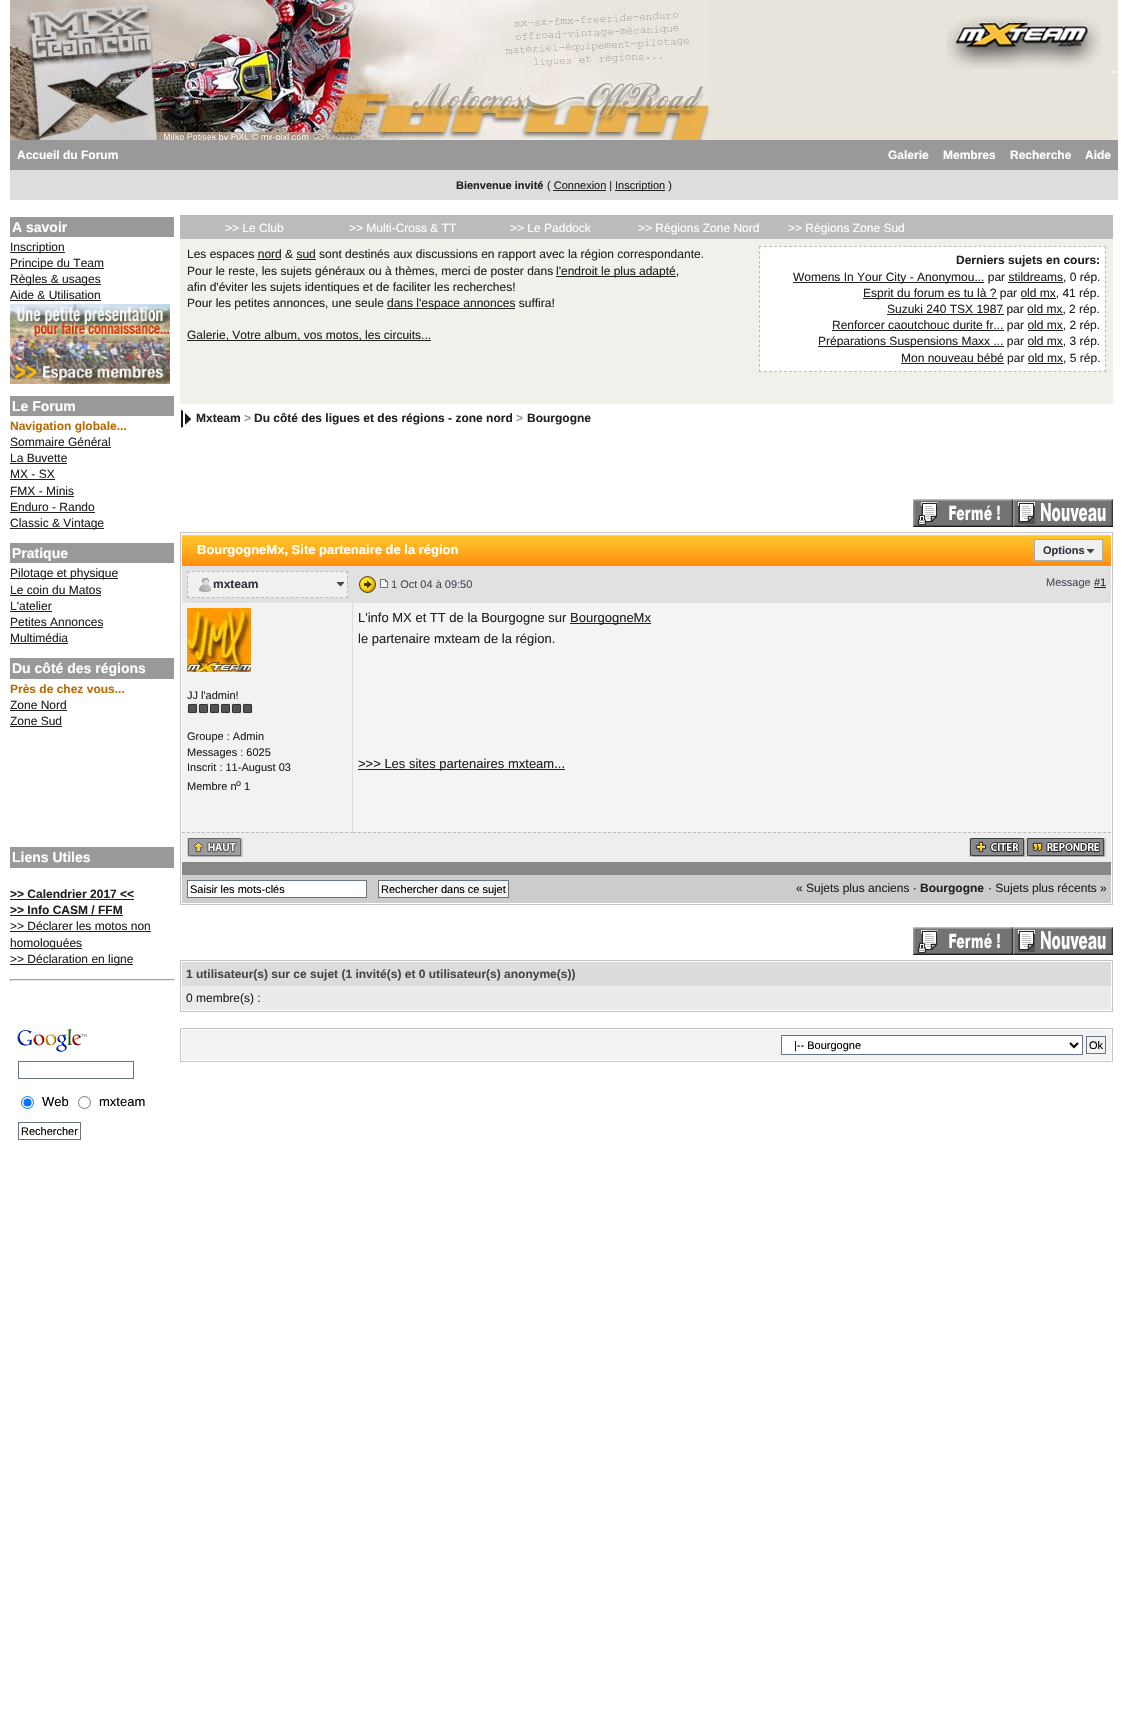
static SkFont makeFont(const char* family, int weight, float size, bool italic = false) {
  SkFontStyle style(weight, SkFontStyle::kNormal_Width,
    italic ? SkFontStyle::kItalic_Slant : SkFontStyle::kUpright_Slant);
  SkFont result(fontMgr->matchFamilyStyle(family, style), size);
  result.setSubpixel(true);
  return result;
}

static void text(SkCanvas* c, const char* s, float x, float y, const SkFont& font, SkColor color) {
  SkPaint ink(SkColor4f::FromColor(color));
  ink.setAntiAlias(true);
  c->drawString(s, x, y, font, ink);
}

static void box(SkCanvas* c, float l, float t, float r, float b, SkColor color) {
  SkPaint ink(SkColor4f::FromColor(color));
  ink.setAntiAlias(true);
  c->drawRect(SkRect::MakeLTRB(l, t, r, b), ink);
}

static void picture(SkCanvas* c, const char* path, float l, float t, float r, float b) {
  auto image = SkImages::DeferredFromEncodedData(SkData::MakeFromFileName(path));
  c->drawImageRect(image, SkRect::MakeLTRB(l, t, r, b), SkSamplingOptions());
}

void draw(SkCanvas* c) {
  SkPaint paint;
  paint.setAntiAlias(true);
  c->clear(0xffffffff);
  box(c, 710, 0, 1118, 140, 0xffe8e4db);
  picture(c, "img_01.png", 10, 0, 710, 140);
  picture(c, "img_02.png", 946, 16, 1101, 69);
  box(c, 1108, 71, 1118, 73, 0xfff0f0f0);
  box(c, 10, 140, 1118, 170, 0xff999999);
  SkFont face1 = makeFont("Liberation Sans", 700, 12);
  text(c, "Accueil du Forum", 17, 159, face1, 0xffffffff);
  text(c, "Galerie", 888, 159, face1, 0xffffffff);
  text(c, "Membres", 943, 159, face1, 0xffffffff);
  text(c, "Recherche", 1010, 159, face1, 0xffffffff);
  text(c, "Aide", 1085, 159, face1, 0xffffffff);
  box(c, 10, 170, 1118, 200, 0xffdddddd);
  SkFont face2 = makeFont("Liberation Sans", 700, 11);
  text(c, "Bienvenue invité", 456, 189, face2, 0xff222222);
  SkFont face3 = makeFont("Liberation Sans", 400, 11);
  text(c, "( Connexion |", 547, 189, face3, 0xff222222);
  box(c, 615, 190, 665, 191, 0xff222222);
  text(c, "Inscription )", 615, 189, face3, 0xff222222);
  box(c, 553, 190, 606, 191, 0xff222222);
  box(c, 10, 217, 174, 237, 0xff999999);
  SkFont face4 = makeFont("Liberation Sans", 700, 14);
  text(c, "A savoir", 12, 232, face4, 0xffffffff);
  box(c, 10, 252, 65, 253, 0xff222222);
  SkFont face5 = makeFont("Liberation Sans", 400, 12);
  text(c, "Inscription", 10, 251, face5, 0xff222222);
  box(c, 10, 268, 104, 269, 0xff222222);
  text(c, "Principe du Team", 10, 267, face5, 0xff222222);
  box(c, 10, 284, 101, 285, 0xff222222);
  text(c, "Règles & usages", 10, 283, face5, 0xff222222);
  text(c, "Aide & Utilisation", 10, 299, face5, 0xff222222);
  box(c, 10, 300, 101, 301, 0xff222222);
  picture(c, "img_03.png", 10, 304, 170, 384);
  box(c, 10, 396, 174, 416, 0xff999999);
  text(c, "Le Forum", 12, 411, face4, 0xffffffff);
  text(c, "Navigation globale...", 10, 430, face1, 0xffba6b05);
  text(c, "Sommaire Général", 10, 446, face5, 0xff222222);
  box(c, 10, 447, 111, 448, 0xff222222);
  text(c, "La Buvette", 10, 462, face5, 0xff222222);
  box(c, 10, 463, 67, 464, 0xff222222);
  text(c, "MX - SX", 10, 478, face5, 0xff222222);
  box(c, 10, 479, 55, 480, 0xff222222);
  text(c, "FMX - Minis", 10, 495, face5, 0xff222222);
  box(c, 10, 496, 74, 497, 0xff222222);
  text(c, "Enduro - Rando", 10, 511, face5, 0xff222222);
  box(c, 10, 512, 95, 513, 0xff222222);
  box(c, 10, 528, 104, 529, 0xff222222);
  text(c, "Classic & Vintage", 10, 527, face5, 0xff222222);
  box(c, 10, 543, 174, 563, 0xff999999);
  text(c, "Pratique", 12, 558, face4, 0xffffffff);
  box(c, 10, 578, 118, 579, 0xff222222);
  text(c, "Pilotage et physique", 10, 577, face5, 0xff222222);
  text(c, "Le coin du Matos", 10, 594, face5, 0xff222222);
  box(c, 10, 595, 101, 596, 0xff222222);
  text(c, "L'atelier", 10, 610, face5, 0xff222222);
  box(c, 10, 611, 52, 612, 0xff222222);
  text(c, "Petites Annonces", 10, 626, face5, 0xff222222);
  box(c, 10, 627, 103, 628, 0xff222222);
  text(c, "Multimédia", 10, 642, face5, 0xff222222);
  box(c, 10, 643, 68, 644, 0xff222222);
  box(c, 10, 658, 174, 679, 0xff999999);
  text(c, "Du côté des régions", 12, 673, face4, 0xffffffff);
  text(c, "Près de chez vous...", 10, 693, face1, 0xffba6b05);
  text(c, "Zone Nord", 10, 709, face5, 0xff222222);
  box(c, 10, 710, 67, 711, 0xff222222);
  text(c, "Zone Sud", 10, 725, face5, 0xff222222);
  box(c, 10, 726, 62, 727, 0xff222222);
  box(c, 10, 847, 174, 868, 0xff999999);
  text(c, "Liens Utiles", 12, 862, face4, 0xffffffff);
  text(c, ">> Calendrier 2017 <<", 10, 898, face1, 0xff222222);
  box(c, 10, 899, 134, 900, 0xff222222);
  text(c, ">> Info CASM / FFM", 10, 914, face1, 0xff222222);
  box(c, 10, 915, 123, 916, 0xff222222);
  text(c, ">> Déclarer les motos non", 10, 930, face5, 0xff222222);
  box(c, 10, 931, 151, 932, 0xff222222);
  box(c, 10, 948, 82, 949, 0xff222222);
  text(c, "homologuées", 10, 947, face5, 0xff222222);
  box(c, 10, 964, 133, 965, 0xff222222);
  text(c, ">> Déclaration en ligne", 10, 963, face5, 0xff222222);
  box(c, 10, 979, 175, 980, 0xff9f9f9f);
  box(c, 174, 979, 175, 981, 0xffeeeeee);
  box(c, 10, 980, 175, 981, 0xffeeeeee);
  box(c, 10, 979, 11, 981, 0xff9f9f9f);
  picture(c, "img_04.png", 17, 1029, 87, 1052);
  paint.setStyle(SkPaint::kStroke_Style);
  paint.setStrokeWidth(1);
  paint.setColor(0xff6a7382);
  c->drawRect(SkRect::MakeLTRB(18.5f, 1061.5f, 133.5f, 1078.5f), paint);
  paint.setColor(0xff0075ff);
  c->drawCircle(27.5f, 1102.5f, 6, paint);
  paint.setStyle(SkPaint::kFill_Style);
  c->drawCircle(27.5f, 1102.5f, 4, paint);
  SkFont face6 = makeFont("Liberation Sans", 400, 13);
  text(c, "Web", 42, 1106, face6, 0xff000000);
  paint.setStyle(SkPaint::kStroke_Style);
  paint.setColor(0xff767676);
  c->drawCircle(84.5f, 1102.5f, 6, paint);
  text(c, "mxteam", 99, 1106, face6, 0xff000000);
  paint.setColor(0xff6a7382);
  c->drawRect(SkRect::MakeLTRB(18.5f, 1122.5f, 80.5f, 1139.5f), paint);
  text(c, "Rechercher", 21, 1135, face3, 0xff000000);
  box(c, 180, 239, 1113, 404, 0xfff2f0eb);
  box(c, 180, 215, 1113, 239, 0xffbbbbbb);
  text(c, ">> Le Club", 225, 232, face5, 0xffffffff);
  text(c, ">> Multi-Cross & TT", 349, 232, face5, 0xffffffff);
  text(c, ">> Le Paddock", 510, 232, face5, 0xffffffff);
  text(c, ">> Régions Zone Nord", 638, 232, face5, 0xffffffff);
  text(c, ">> Régions Zone Sud", 788, 232, face5, 0xffffffff);
  text(c, "Les espaces nord & sud sont destinés aux discussions en rapport avec la région correspondante.", 187, 258, face5, 0xff222222);
  box(c, 257, 259, 281, 260, 0xff222222);
  box(c, 296, 259, 316, 260, 0xff222222);
  text(c, "Pour le reste, les sujets généraux ou à thèmes, merci de poster dans", 187, 275, face5, 0xff222222);
  box(c, 556, 276, 676, 277, 0xff222222);
  text(c, "l'endroit le plus adapté,", 556, 275, face5, 0xff222222);
  text(c, "afin d'éviter les sujets identiques et de faciliter les recherches!", 187, 291, face5, 0xff222222);
  text(c, "Pour les petites annonces, une seule", 187, 307, face5, 0xff222222);
  box(c, 387, 308, 515, 309, 0xff222222);
  text(c, "dans l'espace annonces suffira!", 387, 307, face5, 0xff222222);
  box(c, 187, 340, 431, 341, 0xff222222);
  text(c, "Galerie, Votre album, vos motos, les circuits...", 187, 339, face5, 0xff222222);
  box(c, 759, 246, 1106, 372, 0xffffffff);
  paint.setColor(0xffbbbbbb);
  paint.setPathEffect(SkDashPathEffect::Make({{3, 1.99f}}, 0));
  c->drawPath(SkPathBuilder().moveTo(759, 246.5f).lineTo(1106, 246.5f).detach(), paint);
  paint.setPathEffect(nullptr);
  paint.setPathEffect(SkDashPathEffect::Make({{3, 1.92f}}, 0));
  c->drawPath(SkPathBuilder().moveTo(1105.5f, 246).lineTo(1105.5f, 372).detach(), paint);
  paint.setPathEffect(nullptr);
  paint.setPathEffect(SkDashPathEffect::Make({{3, 1.99f}}, 0));
  c->drawPath(SkPathBuilder().moveTo(759, 371.5f).lineTo(1106, 371.5f).detach(), paint);
  paint.setPathEffect(nullptr);
  paint.setPathEffect(SkDashPathEffect::Make({{3, 1.92f}}, 0));
  c->drawPath(SkPathBuilder().moveTo(759.5f, 246).lineTo(759.5f, 372).detach(), paint);
  paint.setPathEffect(nullptr);
  text(c, "Derniers sujets en cours:", 956, 264, face1, 0xff222222);
  box(c, 793, 282, 984, 283, 0xff222222);
  text(c, "Womens In Your City - Anonymou... par stildreams, 0 rép.", 793, 281, face5, 0xff222222);
  box(c, 1008, 282, 1063, 283, 0xff222222);
  box(c, 863, 298, 997, 299, 0xff222222);
  text(c, "Esprit du forum es tu là ? par old mx, 41 rép.", 863, 297, face5, 0xff222222);
  box(c, 1021, 298, 1056, 299, 0xff222222);
  box(c, 887, 314, 1004, 315, 0xff222222);
  text(c, "Suzuki 240 TSX 1987 par old mx, 2 rép.", 887, 313, face5, 0xff222222);
  box(c, 1028, 314, 1063, 315, 0xff222222);
  box(c, 832, 330, 1004, 331, 0xff222222);
  text(c, "Renforcer caoutchouc durite fr... par old mx, 2 rép.", 832, 329, face5, 0xff222222);
  box(c, 1028, 330, 1063, 331, 0xff222222);
  box(c, 818, 346, 1004, 347, 0xff222222);
  text(c, "Préparations Suspensions Maxx ... par old mx, 3 rép.", 818, 345, face5, 0xff222222);
  box(c, 1028, 346, 1063, 347, 0xff222222);
  box(c, 901, 363, 1004, 364, 0xff222222);
  text(c, "Mon nouveau bébé par old mx, 5 rép.", 901, 362, face5, 0xff222222);
  box(c, 1028, 363, 1063, 364, 0xff222222);
  picture(c, "img_05.png", 181, 409, 192, 428);
  text(c, "Mxteam", 196, 422, face1, 0xff222222);
  text(c, ">", 244, 422, face1, 0xff999999);
  text(c, "Du côté des ligues et des régions - zone nord", 254, 422, face1, 0xff222222);
  text(c, ">", 516, 422, face1, 0xff999999);
  text(c, "Bourgogne", 527, 422, face1, 0xff222222);
  picture(c, "img_06.png", 913, 499, 1013, 527);
  picture(c, "img_07.png", 1013, 499, 1113, 527);
  paint.setColor(0xffc4c4c4);
  c->drawRect(SkRect::MakeLTRB(180.5f, 532.5f, 1112.5f, 904.5f), paint);
  picture(c, "img_08.png", 182, 534, 1111, 566);
  SkFont face7 = makeFont("Liberation Sans", 700, 13);
  text(c, "BourgogneMx, Site partenaire de la région", 197, 554, face7, 0xffffffff);
  paint.setStyle(SkPaint::kFill_Style);
  paint.setColor(0xfff0f0f0);
  c->drawRect(SkRect::MakeLTRB(1034.5f, 539.5f, 1102.5f, 560.5f), paint);
  paint.setStyle(SkPaint::kStroke_Style);
  paint.setColor(0xffadadad);
  c->drawRect(SkRect::MakeLTRB(1034.5f, 539.5f, 1102.5f, 560.5f), paint);
  text(c, "Options", 1043, 554, face2, 0xff30343b);
  picture(c, "img_09.png", 1087, 549, 1094, 554);
  box(c, 182, 566, 1111, 603, 0xffe1e1e1);
  box(c, 187, 571, 348, 598, 0xfff0f0f0);
  picture(c, "img_09.png", 337, 582, 344, 587);
  paint.setColor(0xffbbbbbb);
  paint.setPathEffect(SkDashPathEffect::Make({{3, 1.94f}}, 0));
  c->drawPath(SkPathBuilder().moveTo(187, 571.5f).lineTo(348, 571.5f).detach(), paint);
  paint.setPathEffect(nullptr);
  paint.setPathEffect(SkDashPathEffect::Make({{3, 1.8f}}, 0));
  c->drawPath(SkPathBuilder().moveTo(347.5f, 571).lineTo(347.5f, 598).detach(), paint);
  paint.setPathEffect(nullptr);
  paint.setPathEffect(SkDashPathEffect::Make({{3, 1.94f}}, 0));
  c->drawPath(SkPathBuilder().moveTo(187, 597.5f).lineTo(348, 597.5f).detach(), paint);
  paint.setPathEffect(nullptr);
  paint.setPathEffect(SkDashPathEffect::Make({{3, 1.8f}}, 0));
  c->drawPath(SkPathBuilder().moveTo(187.5f, 571).lineTo(187.5f, 598).detach(), paint);
  paint.setPathEffect(nullptr);
  picture(c, "img_10.png", 199, 578, 211, 592);
  text(c, "mxteam", 213, 588, face1, 0xff30343b);
  picture(c, "img_11.png", 359, 576, 376, 593);
  picture(c, "img_12.png", 380, 579, 388, 588);
  text(c, "1 Oct 04 à 09:50", 391, 588, face3, 0xff464c55);
  text(c, "Message", 1046, 586, face3, 0xff464c55);
  box(c, 1094, 587, 1106, 588, 0xff222222);
  text(c, "#1", 1094, 586, face3, 0xff222222);
  box(c, 182, 603, 352, 832, 0xfff2f2f2);
  box(c, 352, 603, 353, 832, 0xffdcdcdc);
  picture(c, "img_13.png", 187, 608, 251, 672);
  text(c, "JJ l'admin!", 187, 699, face3, 0xff222222);
  picture(c, "img_14.png", 187, 703, 198, 714);
  picture(c, "img_14.png", 198, 703, 209, 714);
  picture(c, "img_14.png", 209, 703, 220, 714);
  picture(c, "img_14.png", 220, 703, 231, 714);
  picture(c, "img_14.png", 231, 703, 242, 714);
  picture(c, "img_14.png", 242, 703, 253, 714);
  text(c, "Groupe : Admin", 187, 740, face3, 0xff222222);
  text(c, "Messages : 6025", 187, 756, face3, 0xff222222);
  text(c, "Inscrit : 11-August 03", 187, 771, face3, 0xff222222);
  text(c, "Membre n", 187, 790, face3, 0xff222222);
  SkFont face8 = makeFont("Liberation Sans", 400, 9);
  text(c, "o", 236, 786, face8, 0xff222222);
  text(c, "1", 244, 790, face3, 0xff222222);
  box(c, 353, 603, 1111, 832, 0xfff4f4f4);
  text(c, "L'info MX et TT de la Bourgogne sur", 358, 622, face6, 0xff222222);
  box(c, 570, 623, 651, 624, 0xff222222);
  text(c, "BourgogneMx", 570, 622, face6, 0xff222222);
  text(c, "le partenaire mxteam de la région.", 358, 643, face6, 0xff222222);
  box(c, 358, 769, 565, 770, 0xff222222);
  text(c, ">>> Les sites partenaires mxteam...", 358, 768, face6, 0xff222222);
  box(c, 182, 832, 1111, 862, 0xffeeeeee);
  paint.setPathEffect(SkDashPathEffect::Make({{3, 1.94f}}, 0));
  c->drawPath(SkPathBuilder().moveTo(182, 832.5f).lineTo(353, 832.5f).detach(), paint);
  paint.setPathEffect(nullptr);
  picture(c, "img_15.png", 187, 838, 243, 857);
  paint.setPathEffect(SkDashPathEffect::Make({{3, 2}}, 0));
  c->drawPath(SkPathBuilder().moveTo(353, 832.5f).lineTo(1111, 832.5f).detach(), paint);
  paint.setPathEffect(nullptr);
  picture(c, "img_16.png", 969, 838, 1026, 857);
  picture(c, "img_17.png", 1026, 838, 1106, 857);
  box(c, 182, 862, 1111, 875, 0xff888888);
  box(c, 182, 875, 1111, 903, 0xffcccccc);
  paint.setStyle(SkPaint::kFill_Style);
  paint.setColor(0xffffffff);
  c->drawRect(SkRect::MakeLTRB(187.5f, 880.5f, 366.5f, 897.5f), paint);
  paint.setStyle(SkPaint::kStroke_Style);
  paint.setColor(0xff6a7382);
  c->drawRect(SkRect::MakeLTRB(187.5f, 880.5f, 366.5f, 897.5f), paint);
  text(c, "Saisir les mots-clés", 190, 893, face3, 0xff000000);
  paint.setStyle(SkPaint::kFill_Style);
  paint.setColor(0xfff4f4f4);
  c->drawRect(SkRect::MakeLTRB(378.5f, 880.5f, 508.5f, 897.5f), paint);
  paint.setStyle(SkPaint::kStroke_Style);
  paint.setColor(0xff6a7382);
  c->drawRect(SkRect::MakeLTRB(378.5f, 880.5f, 508.5f, 897.5f), paint);
  text(c, "Rechercher dans ce sujet", 381, 893, face3, 0xff000000);
  text(c, "« Sujets plus anciens ·", 796, 892, face5, 0xff222222);
  text(c, "Bourgogne", 920, 892, face1, 0xff222222);
  text(c, "· Sujets plus récents »", 988, 892, face5, 0xff222222);
  picture(c, "img_06.png", 913, 927, 1013, 955);
  picture(c, "img_07.png", 1013, 927, 1113, 955);
  paint.setColor(0xffc4c4c4);
  c->drawRect(SkRect::MakeLTRB(180.5f, 960.5f, 1112.5f, 1011.5f), paint);
  box(c, 182, 962, 1111, 986, 0xffdcdcdc);
  text(c, "1 utilisateur(s) sur ce sujet (1 invité(s) et 0 utilisateur(s) anonyme(s))", 186, 978, face1, 0xff474747);
  box(c, 182, 986, 1111, 1010, 0xffebebeb);
  text(c, "0 membre(s) :", 186, 1002, face5, 0xff222222);
  c->drawRect(SkRect::MakeLTRB(180.5f, 1028.5f, 1112.5f, 1061.5f), paint);
  box(c, 182, 1030, 1111, 1060, 0xfff3f3f3);
  paint.setStyle(SkPaint::kFill_Style);
  paint.setColor(0xffffffff);
  c->drawRect(SkRect::MakeLTRB(781.5f, 1035.5f, 1082.5f, 1054.5f), paint);
  paint.setStyle(SkPaint::kStroke_Style);
  paint.setColor(0xff6a7382);
  c->drawRect(SkRect::MakeLTRB(781.5f, 1035.5f, 1082.5f, 1054.5f), paint);
  paint.setStrokeWidth(2);
  paint.setColor(0xff000000);
  c->drawPath(SkPathBuilder().moveTo(1070, 1043).lineTo(1074, 1047).lineTo(1078, 1043).detach(), paint);
  text(c, "|-- Bourgogne", 794, 1049, face3, 0xff000000);
  paint.setStrokeWidth(1);
  paint.setColor(0xff6a7382);
  c->drawRect(SkRect::MakeLTRB(1086.5f, 1036.5f, 1105.5f, 1053.5f), paint);
  text(c, "Ok", 1089, 1049, face3, 0xff000000);
}
